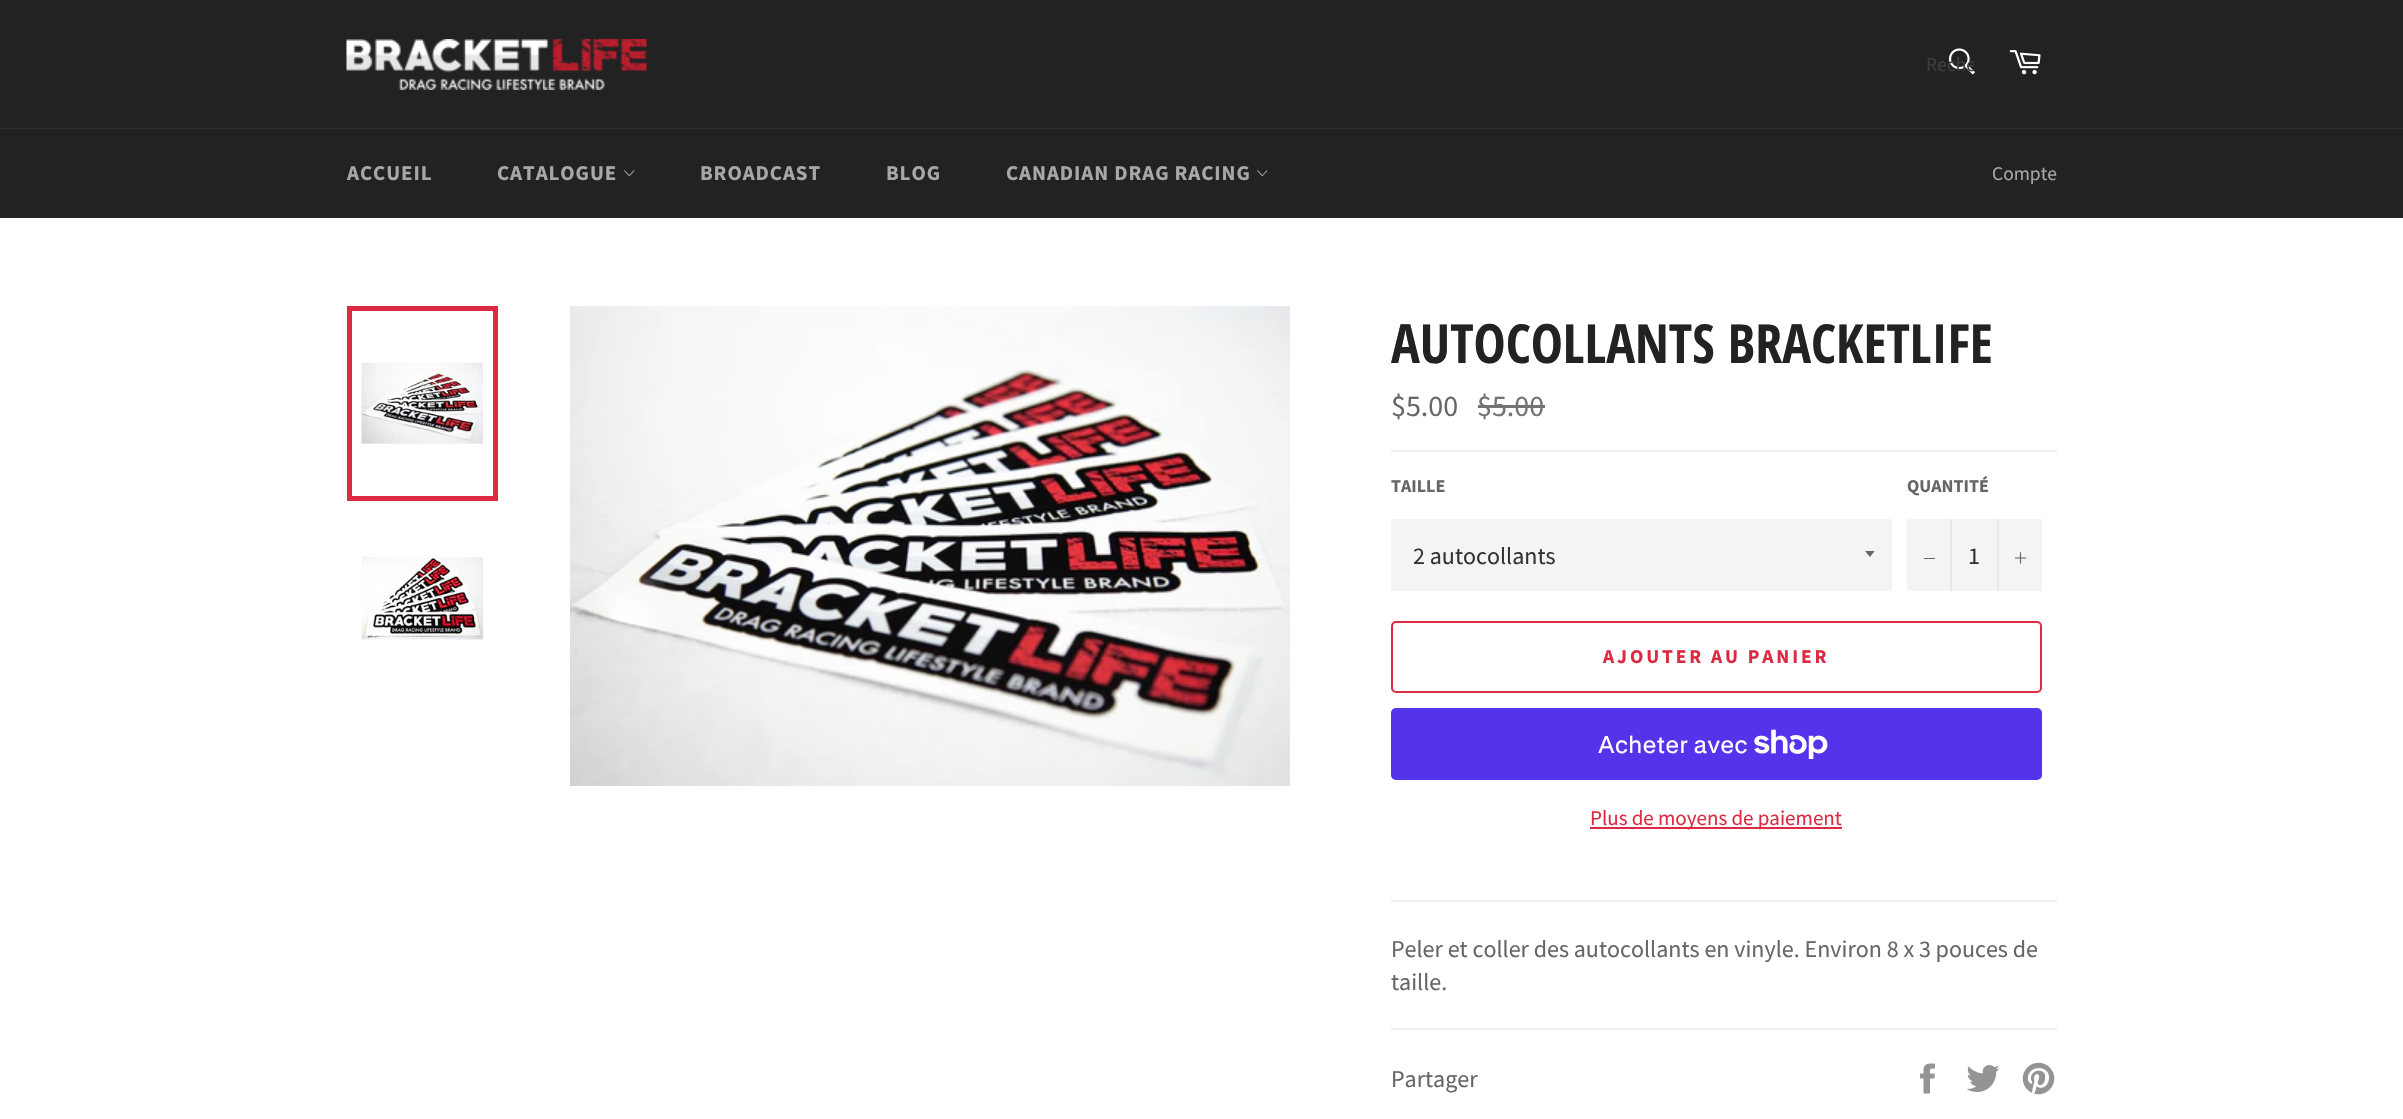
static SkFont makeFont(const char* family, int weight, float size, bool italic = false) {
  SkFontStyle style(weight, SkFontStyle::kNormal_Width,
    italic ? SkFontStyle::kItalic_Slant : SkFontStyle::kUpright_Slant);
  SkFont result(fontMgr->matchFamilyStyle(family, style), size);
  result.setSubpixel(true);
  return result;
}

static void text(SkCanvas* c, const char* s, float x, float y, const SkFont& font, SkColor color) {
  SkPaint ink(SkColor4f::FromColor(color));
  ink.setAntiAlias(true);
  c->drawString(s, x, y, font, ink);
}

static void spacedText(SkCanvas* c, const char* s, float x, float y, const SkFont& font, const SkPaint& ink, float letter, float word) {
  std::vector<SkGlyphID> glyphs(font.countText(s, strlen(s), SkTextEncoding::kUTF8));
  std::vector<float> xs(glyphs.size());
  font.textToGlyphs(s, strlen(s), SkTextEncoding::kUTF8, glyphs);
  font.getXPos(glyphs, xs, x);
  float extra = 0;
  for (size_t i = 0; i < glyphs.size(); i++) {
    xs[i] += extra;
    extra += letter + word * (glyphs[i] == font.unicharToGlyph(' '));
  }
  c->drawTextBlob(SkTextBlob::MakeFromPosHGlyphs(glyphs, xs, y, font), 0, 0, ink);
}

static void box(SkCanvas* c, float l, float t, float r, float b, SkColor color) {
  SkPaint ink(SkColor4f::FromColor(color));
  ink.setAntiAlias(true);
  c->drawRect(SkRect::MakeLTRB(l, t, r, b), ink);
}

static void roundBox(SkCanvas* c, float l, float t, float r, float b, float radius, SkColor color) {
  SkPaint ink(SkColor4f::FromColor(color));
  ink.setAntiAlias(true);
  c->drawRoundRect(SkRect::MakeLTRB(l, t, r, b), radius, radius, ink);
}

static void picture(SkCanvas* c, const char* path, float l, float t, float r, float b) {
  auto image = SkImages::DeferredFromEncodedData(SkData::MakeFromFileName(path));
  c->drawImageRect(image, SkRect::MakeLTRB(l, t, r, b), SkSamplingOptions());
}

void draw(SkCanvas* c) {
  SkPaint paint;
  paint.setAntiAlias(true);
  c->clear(0xff222222);
  picture(c, "img_01.png", 346, 39, 647, 90);
  picture(c, "img_02.png", 1948, 48, 1975, 75);
  c->save();
  c->clipRect(SkRect::MakeLTRB(1926, 51, 1974, 77));
  SkFont face1 = makeFont("Source Sans Pro", 400, 19.5f);
  text(c, "Reche", 1926, 71, face1, 0xff3e3e3e);
  c->restore();
  picture(c, "img_03.png", 2009, 50, 2041, 75);
  box(c, 0, 128, 2403, 129, 0xff2f2f2f);
  SkFont face2 = makeFont("Source Sans Pro", 700, 21);
  paint.setColor(0xffa7a7a7);
  spacedText(c, "ACCUEIL", 347, 180, face2, paint, 0.9f, 0);
  spacedText(c, "CATALOGUE", 497, 180, face2, paint, 0.9f, 0);
  picture(c, "img_04.png", 624, 170, 635, 177);
  spacedText(c, "BROADCAST", 700, 180, face2, paint, 0.9f, 0);
  spacedText(c, "BLOG", 886, 180, face2, paint, 0.9f, 0);
  spacedText(c, "CANADIAN DRAG RACING", 1006, 180, face2, paint, 0.9f, 0);
  picture(c, "img_04.png", 1257, 170, 1268, 177);
  text(c, "Compte", 1992, 180, face1, 0xffa7a7a7);
  box(c, 0, 218, 2403, 1119, 0xffffffff);
  picture(c, "img_05.png", 361, 362, 483, 444);
  paint.setStyle(SkPaint::kStroke_Style);
  paint.setStrokeWidth(5);
  paint.setColor(0xffdc2a42);
  c->drawRect(SkRect::MakeLTRB(349.5f, 308.5f, 495.5f, 498.5f), paint);
  picture(c, "img_06.png", 361, 557, 483, 640);
  picture(c, "img_07.png", 570, 306, 1290, 786);
  SkFont face3 = makeFont("Open Sans Condensed", 700, 54);
  text(c, "AUTOCOLLANTS BRACKETLIFE", 1391, 363, face3, 0xff222222);
  SkFont face4 = makeFont("Source Sans Pro", 400, 30);
  text(c, "$5.00", 1391, 416, face4, 0xff666666);
  text(c, "$5.00", 1477, 416, face4, 0xff737373);
  box(c, 1478, 405, 1545, 408, 0xff737373);
  box(c, 1391, 450, 2057, 452, 0xfff0f0f0);
  SkFont face5 = makeFont("Source Sans Pro", 700, 18);
  text(c, "TAILLE", 1391, 492, face5, 0xff666666);
  box(c, 1391, 519, 1892, 591, 0xfff4f4f4);
  c->save();
  c->clipRect(SkRect::MakeLTRB(1865, 551, 1877, 558));
  paint.setStyle(SkPaint::kFill_Style);
  paint.setColor(0xff666666);
  c->drawPath(SkPathBuilder().moveTo(1864.5f, 550.5f).lineTo(1870, 557).lineTo(1875, 550.5f).close().detach(), paint);
  c->restore();
  SkFont face6 = makeFont("Source Sans Pro", 400, 24);
  text(c, "2 autocollants", 1413, 564, face6, 0xff333333);
  text(c, "QUANTITÉ", 1907, 492, face5, 0xff666666);
  box(c, 1907, 519, 2042, 591, 0xfff4f4f4);
  box(c, 1950, 519, 1952, 591, 0xffe7e7e7);
  box(c, 1924, 558, 1935, 559, 0xff666666);
  text(c, "1", 1968, 564, face6, 0xff333333);
  box(c, 1997, 519, 1999, 591, 0xffe7e7e7);
  picture(c, "img_08.png", 2015, 552, 2027, 564);
  paint.setStyle(SkPaint::kStroke_Style);
  paint.setStrokeWidth(2);
  paint.setColor(0xffdc2a42);
  c->drawRoundRect(SkRect::MakeLTRB(1392, 622, 2041, 692), 4, 4, paint);
  SkFont face7 = makeFont("Source Sans Pro", 700, 19.5f);
  paint.setStyle(SkPaint::kFill_Style);
  spacedText(c, "AJOUTER AU PANIER", 1603, 663, face7, paint, 2.9f, 0);
  roundBox(c, 1391, 708, 2042, 780, 5, 0xff5433eb);
  SkFont face8 = makeFont("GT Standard", 400, 24);
  text(c, "Acheter avec", 1598, 753, face8, 0xffffffff);
  picture(c, "img_09.png", 1754, 729, 1828, 759);
  box(c, 1590, 827, 1842, 829, 0xffdc2a42);
  SkFont face9 = makeFont("Source Sans Pro", 400, 21);
  text(c, "Plus de moyens de paiement", 1590, 825, face9, 0xffdc2a42);
  box(c, 1391, 900, 2057, 902, 0xfff0f0f0);
  text(c, "Peler et coller des autocollants en vinyle. Environ 8 x 3 pouces de", 1391, 957, face6, 0xff666666);
  text(c, "taille.", 1391, 990, face6, 0xff666666);
  box(c, 1391, 1028, 2057, 1030, 0xfff0f0f0);
  text(c, "Partager", 1391, 1087, face6, 0xff666666);
  picture(c, "img_10.png", 1920, 1063, 1935, 1094);
  picture(c, "img_11.png", 1966, 1065, 2000, 1092);
  picture(c, "img_12.png", 2022, 1062, 2055, 1095);
}
